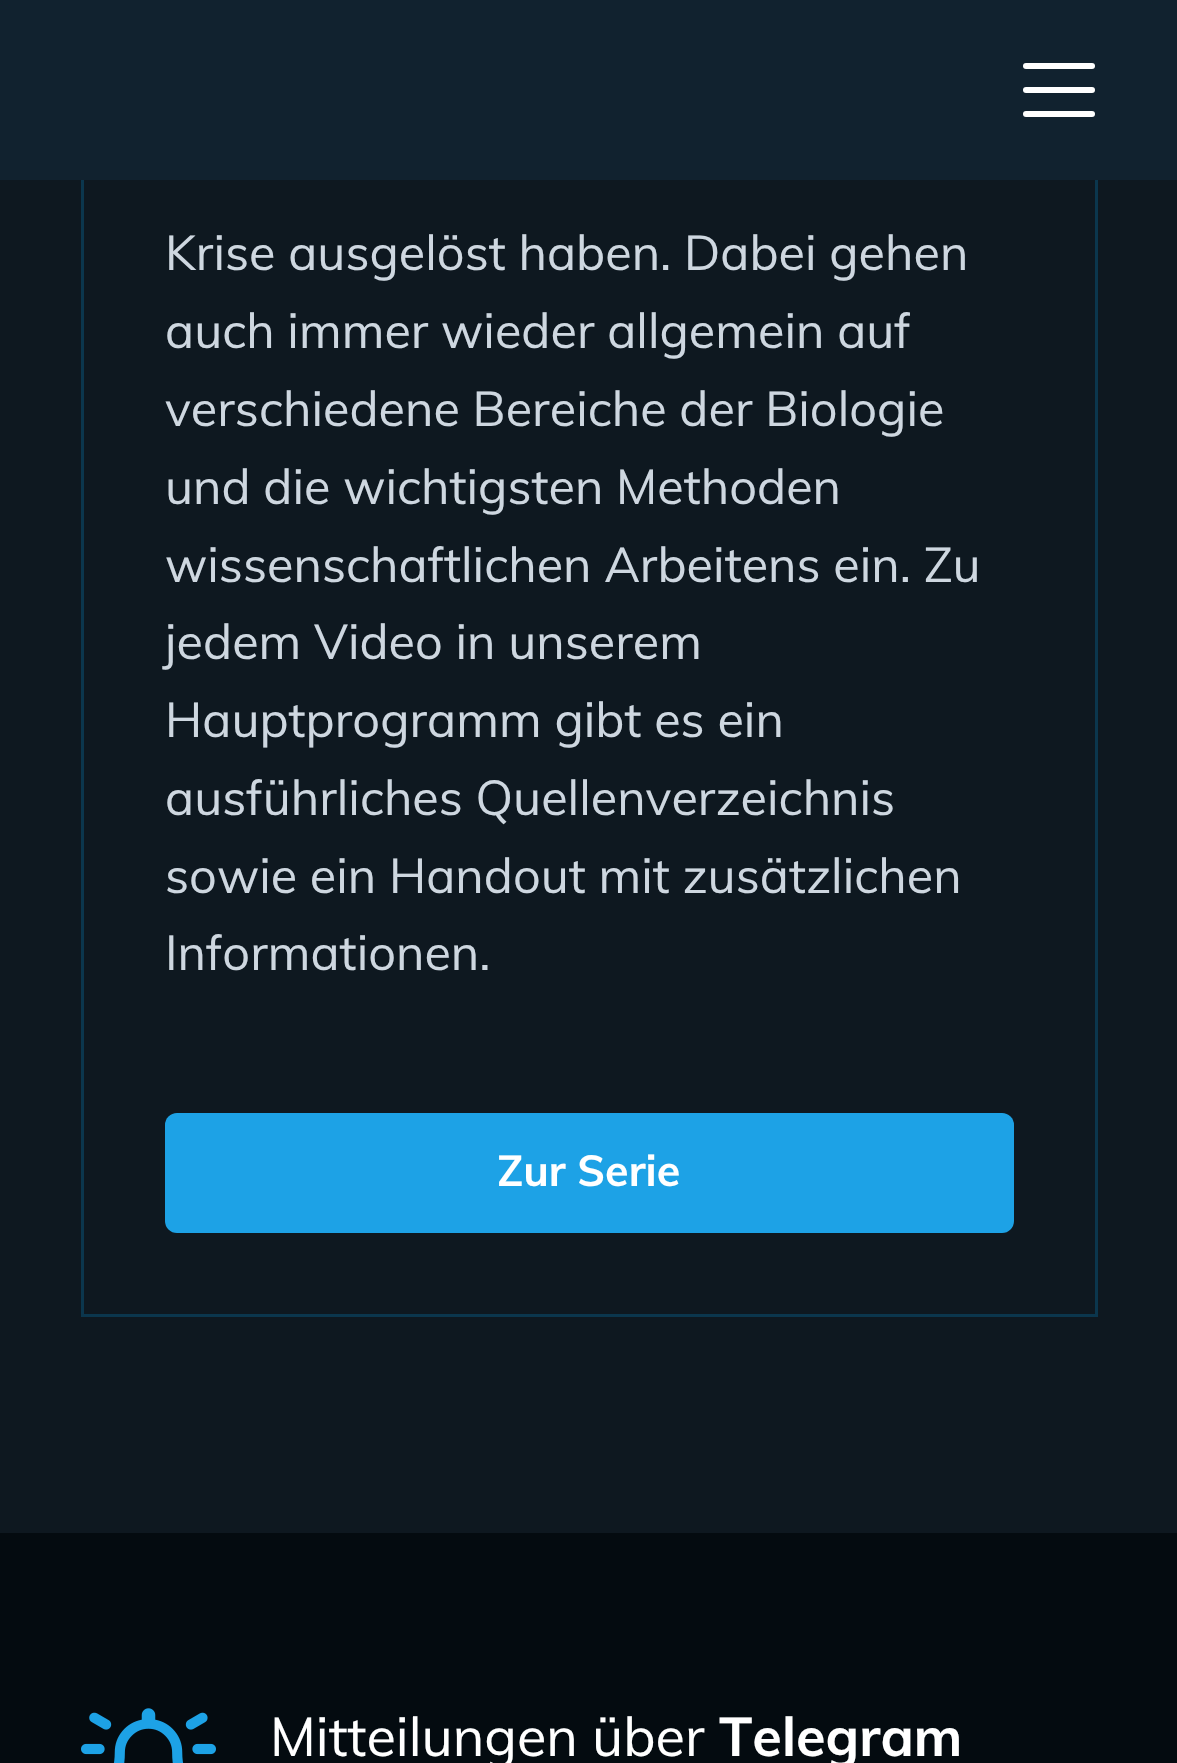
static SkFont makeFont(const char* family, int weight, float size, bool italic = false) {
  SkFontStyle style(weight, SkFontStyle::kNormal_Width,
    italic ? SkFontStyle::kItalic_Slant : SkFontStyle::kUpright_Slant);
  SkFont result(fontMgr->matchFamilyStyle(family, style), size);
  result.setSubpixel(true);
  return result;
}

static void text(SkCanvas* c, const char* s, float x, float y, const SkFont& font, SkColor color) {
  SkPaint ink(SkColor4f::FromColor(color));
  ink.setAntiAlias(true);
  c->drawString(s, x, y, font, ink);
}

static void box(SkCanvas* c, float l, float t, float r, float b, SkColor color) {
  SkPaint ink(SkColor4f::FromColor(color));
  ink.setAntiAlias(true);
  c->drawRect(SkRect::MakeLTRB(l, t, r, b), ink);
}

static void roundBox(SkCanvas* c, float l, float t, float r, float b, float radius, SkColor color) {
  SkPaint ink(SkColor4f::FromColor(color));
  ink.setAntiAlias(true);
  c->drawRoundRect(SkRect::MakeLTRB(l, t, r, b), radius, radius, ink);
}

static void picture(SkCanvas* c, const char* path, float l, float t, float r, float b) {
  auto image = SkImages::DeferredFromEncodedData(SkData::MakeFromFileName(path));
  c->drawImageRect(image, SkRect::MakeLTRB(l, t, r, b), SkSamplingOptions());
}

void draw(SkCanvas* c) {
  SkPaint paint;
  paint.setAntiAlias(true);
  c->clear(0xff0e1820);
  paint.setStyle(SkPaint::kStroke_Style);
  paint.setStrokeWidth(3);
  paint.setColor(0xff0b364d);
  c->drawRect(SkRect::MakeLTRB(82.5f, -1.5f, 1096.5f, 1315.5f), paint);
  box(c, 0, 0, 1177, 180, 0xff11222f);
  roundBox(c, 1023, 87, 1095, 93, 3, 0xffffffff);
  roundBox(c, 1023, 63, 1095, 69, 3, 0xffffffff);
  roundBox(c, 1023, 111, 1095, 117, 3, 0xffffffff);
  SkFont face1 = makeFont("Mulish", 400, 48.6f);
  text(c, "Krise ausgelöst haben. Dabei gehen", 165, 270, face1, 0xffced7e0);
  text(c, "auch immer wieder allgemein auf", 165, 348, face1, 0xffced7e0);
  text(c, "verschiedene Bereiche der Biologie", 165, 426, face1, 0xffced7e0);
  text(c, "und die wichtigsten Methoden", 165, 504, face1, 0xffced7e0);
  text(c, "wissenschaftlichen Arbeitens ein. Zu", 165, 582, face1, 0xffced7e0);
  text(c, "jedem Video in unserem", 165, 659, face1, 0xffced7e0);
  text(c, "Hauptprogramm gibt es ein", 165, 737, face1, 0xffced7e0);
  text(c, "ausführliches Quellenverzeichnis", 165, 815, face1, 0xffced7e0);
  text(c, "sowie ein Handout mit zusätzlichen", 165, 893, face1, 0xffced7e0);
  text(c, "Informationen.", 165, 970, face1, 0xffced7e0);
  roundBox(c, 165, 1113, 1014, 1233, 12, 0xff1da2e6);
  SkFont face2 = makeFont("Mulish", 700, 43);
  text(c, "Zur Serie", 497, 1186, face2, 0xffffffff);
  box(c, 0, 1533, 1177, 1763, 0xff040b10);
  picture(c, "img_01.png", 81, 1708, 216, 1763);
  SkFont face3 = makeFont("Mulish", 400, 54);
  text(c, "Mitteilungen über", 270, 1756, face3, 0xffffffff);
  SkFont face4 = makeFont("Mulish", 700, 54);
  text(c, "Telegram", 719, 1756, face4, 0xffffffff);
}
